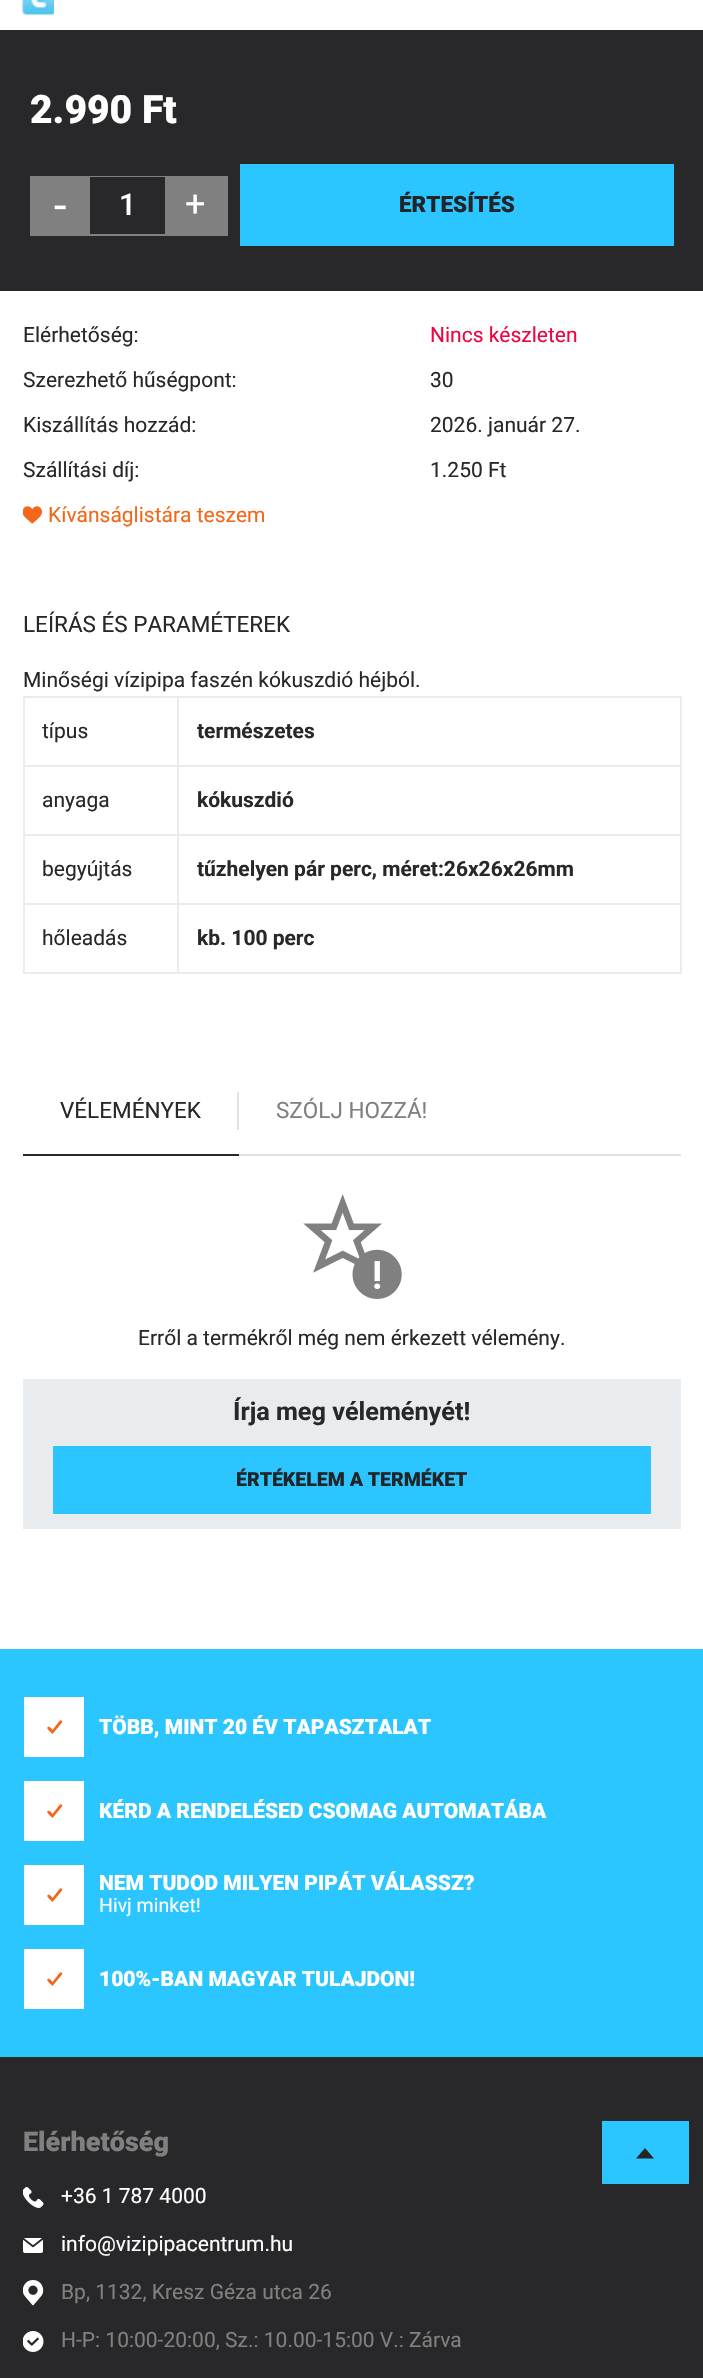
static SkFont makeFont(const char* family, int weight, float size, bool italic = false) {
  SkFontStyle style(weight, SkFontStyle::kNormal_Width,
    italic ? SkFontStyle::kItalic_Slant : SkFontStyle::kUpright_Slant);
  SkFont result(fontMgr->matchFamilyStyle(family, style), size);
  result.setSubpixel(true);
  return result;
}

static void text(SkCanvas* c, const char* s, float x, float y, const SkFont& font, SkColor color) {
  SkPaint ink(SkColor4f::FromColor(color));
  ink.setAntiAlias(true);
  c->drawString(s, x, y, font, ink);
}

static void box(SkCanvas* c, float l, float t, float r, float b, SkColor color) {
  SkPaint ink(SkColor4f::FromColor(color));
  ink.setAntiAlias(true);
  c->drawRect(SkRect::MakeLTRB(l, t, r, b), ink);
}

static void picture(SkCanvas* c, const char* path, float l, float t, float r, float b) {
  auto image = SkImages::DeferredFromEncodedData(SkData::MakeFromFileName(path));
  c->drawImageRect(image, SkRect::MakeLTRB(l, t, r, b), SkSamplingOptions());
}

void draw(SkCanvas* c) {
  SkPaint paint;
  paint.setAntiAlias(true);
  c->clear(0xffffffff);
  picture(c, "img_01.png", 22, 0, 54, 15);
  box(c, 0, 30, 703, 291, 0xff282729);
  SkFont face1 = makeFont("Roboto", 900, 39);
  text(c, "2.990 Ft", 30, 123, face1, 0xffffffff);
  box(c, 30, 176, 228, 236, 0xff808080);
  SkFont face2 = makeFont("Roboto", 400, 45);
  text(c, "-", 54, 221, face2, 0xffffffff);
  box(c, 90, 177, 165, 234, 0xff282729);
  SkFont face3 = makeFont("Roboto", 500, 30);
  text(c, "1", 119, 215, face3, 0xffffffff);
  SkFont face4 = makeFont("Roboto", 400, 36);
  text(c, "+", 185, 216, face4, 0xffffffff);
  box(c, 240, 164, 674, 246, 0xff2bc6ff);
  SkFont face5 = makeFont("Roboto", 900, 22.5f);
  text(c, "ÉRTESÍTÉS", 399, 212, face5, 0xff212529);
  SkFont face6 = makeFont("Roboto", 400, 21);
  text(c, "Elérhetőség:", 23, 342, face6, 0xff282729);
  text(c, "Nincs készleten", 430, 342, face6, 0xfff00540);
  text(c, "Szerezhető hűségpont:", 23, 387, face6, 0xff282729);
  text(c, "30", 430, 387, face6, 0xff282729);
  text(c, "Kiszállítás hozzád:", 23, 432, face6, 0xff282729);
  text(c, "2026. január 27.", 430, 432, face6, 0xff282729);
  text(c, "Szállítási díj:", 23, 477, face6, 0xff282729);
  text(c, "1.250 Ft", 430, 477, face6, 0xff282729);
  picture(c, "img_02.png", 23, 506, 42, 524);
  text(c, "Kívánságlistára teszem", 48, 522, face6, 0xfff46618);
  SkFont face7 = makeFont("Roboto", 400, 22.5f);
  text(c, "LEÍRÁS ÉS PARAMÉTEREK", 23, 632, face7, 0xff282729);
  text(c, "Minőségi vízipipa faszén kókuszdió héjból.", 23, 687, face6, 0xff282729);
  box(c, 23, 696, 681, 698, 0xffe9ecef);
  box(c, 680, 696, 682, 974, 0xffe9ecef);
  box(c, 23, 972, 681, 974, 0xffe9ecef);
  box(c, 23, 696, 25, 974, 0xffe9ecef);
  text(c, "típus", 42, 738, face6, 0xff282729);
  box(c, 177, 765, 681, 767, 0xffe9ecef);
  box(c, 177, 834, 681, 836, 0xffe9ecef);
  box(c, 177, 903, 681, 905, 0xffe9ecef);
  box(c, 177, 903, 179, 974, 0xffe9ecef);
  box(c, 23, 903, 179, 905, 0xffe9ecef);
  box(c, 177, 834, 179, 905, 0xffe9ecef);
  box(c, 23, 834, 179, 836, 0xffe9ecef);
  box(c, 177, 765, 179, 836, 0xffe9ecef);
  box(c, 23, 765, 179, 767, 0xffe9ecef);
  box(c, 177, 696, 179, 767, 0xffe9ecef);
  SkFont face8 = makeFont("Roboto", 700, 21);
  text(c, "természetes", 197, 738, face8, 0xff282729);
  text(c, "anyaga", 42, 807, face6, 0xff282729);
  text(c, "kókuszdió", 197, 807, face8, 0xff282729);
  text(c, "begyújtás", 42, 876, face6, 0xff282729);
  text(c, "tűzhelyen pár perc, méret:26x26x26mm", 197, 876, face8, 0xff282729);
  text(c, "hőleadás", 42, 945, face6, 0xff282729);
  text(c, "kb. 100 perc", 197, 945, face8, 0xff282729);
  box(c, 239, 1154, 681, 1156, 0xffe2e2e2);
  box(c, 23, 1154, 239, 1156, 0xff282729);
  text(c, "VÉLEMÉNYEK", 60, 1118, face7, 0xff282729);
  box(c, 237, 1092, 239, 1130, 0xffe2e2e2);
  text(c, "SZÓLJ HOZZÁ!", 276, 1118, face7, 0xff808080);
  picture(c, "img_03.png", 303, 1194, 402, 1299);
  text(c, "Erről a termékről még nem érkezett vélemény.", 138, 1345, face6, 0xff282729);
  box(c, 23, 1379, 681, 1529, 0xffe9ecef);
  SkFont face9 = makeFont("Roboto", 700, 25.25f);
  text(c, "Írja meg véleményét!", 233, 1420, face9, 0xff282729);
  box(c, 53, 1446, 651, 1514, 0xff2bc6ff);
  SkFont face10 = makeFont("Roboto", 900, 19.5f);
  text(c, "ÉRTÉKELEM A TERMÉKET", 236, 1486, face10, 0xff212529);
  box(c, 0, 1649, 703, 2057, 0xff2bc6ff);
  box(c, 24, 1697, 84, 1757, 0xffffffff);
  paint.setColor(0xfff46618);
  c->drawPath(SkPathBuilder().moveTo(61.5f, 1720.5f).cubicTo(61, 1720, 60, 1720.5f, 59.5f, 1721).lineTo(52.5f, 1730).cubicTo(51.5f, 1729, 50, 1726, 48, 1727).cubicTo(46, 1727.5f, 48.5f, 1730, 49, 1730.5f).lineTo(52.5f, 1734).lineTo(62, 1722.5f).cubicTo(62.5f, 1722, 62.5f, 1721, 61.5f, 1720.5f).close().detach(), paint);
  SkFont face11 = makeFont("Roboto", 900, 21);
  text(c, "TÖBB, MINT 20 ÉV TAPASZTALAT", 99, 1734, face11, 0xffffffff);
  box(c, 24, 1781, 84, 1841, 0xffffffff);
  c->drawPath(SkPathBuilder().moveTo(61.5f, 1804.5f).cubicTo(61, 1804, 60, 1804.5f, 59.5f, 1805).lineTo(52.5f, 1814).cubicTo(51.5f, 1813, 50, 1810, 48, 1811).cubicTo(46, 1811.5f, 48.5f, 1814, 49, 1814.5f).lineTo(52.5f, 1818).lineTo(62, 1806.5f).cubicTo(62.5f, 1806, 62.5f, 1805, 61.5f, 1804.5f).close().detach(), paint);
  text(c, "KÉRD A RENDELÉSED CSOMAG AUTOMATÁBA", 99, 1818, face11, 0xffffffff);
  box(c, 24, 1865, 84, 1925, 0xffffffff);
  c->drawPath(SkPathBuilder().moveTo(61.5f, 1888.5f).cubicTo(61, 1888, 60, 1888.5f, 59.5f, 1889).lineTo(52.5f, 1898).cubicTo(51.5f, 1897, 50, 1894, 48, 1895).cubicTo(46, 1895.5f, 48.5f, 1898, 49, 1898.5f).lineTo(52.5f, 1902).lineTo(62, 1890.5f).cubicTo(62.5f, 1890, 62.5f, 1889, 61.5f, 1888.5f).close().detach(), paint);
  text(c, "NEM TUDOD MILYEN PIPÁT VÁLASSZ?", 99, 1890, face11, 0xffffffff);
  SkFont face12 = makeFont("Roboto", 400, 19.5f);
  text(c, "Hivj minket!", 99, 1912, face12, 0xffffffff);
  box(c, 24, 1949, 84, 2009, 0xffffffff);
  c->drawPath(SkPathBuilder().moveTo(61.5f, 1972.5f).cubicTo(61, 1972, 60, 1972.5f, 59.5f, 1973).lineTo(52.5f, 1982).cubicTo(51.5f, 1981, 50, 1978, 48, 1979).cubicTo(46, 1979.5f, 48.5f, 1982, 49, 1982.5f).lineTo(52.5f, 1986).lineTo(62, 1974.5f).cubicTo(62.5f, 1974, 62.5f, 1973, 61.5f, 1972.5f).close().detach(), paint);
  text(c, "100%-BAN MAGYAR TULAJDON!", 99, 1986, face11, 0xffffffff);
  box(c, 0, 2057, 703, 2378, 0xff282729);
  SkFont face13 = makeFont("Roboto", 900, 27);
  text(c, "Elérhetőség", 23, 2151, face13, 0xff808080);
  picture(c, "img_04.png", 23, 2187, 44, 2208);
  text(c, "+36 1 787 4000", 61, 2203, face6, 0xffffffff);
  picture(c, "img_05.png", 23, 2238, 43, 2253);
  text(c, "info@vizipipacentrum.hu", 61, 2251, face6, 0xffffffff);
  picture(c, "img_06.png", 23, 2280, 44, 2306);
  text(c, "Bp, 1132, Kresz Géza utca 26", 61, 2299, face6, 0xff808080);
  picture(c, "img_07.png", 23, 2331, 44, 2352);
  text(c, "H-P: 10:00-20:00, Sz.: 10.00-15:00 V.: Zárva", 61, 2347, face6, 0xff808080);
  box(c, 602, 2121, 689, 2184, 0xff2bc6ff);
  paint.setColor(0xff212529);
  c->drawPath(SkPathBuilder().moveTo(654, 2158.5f).lineTo(645, 2148).lineTo(636, 2158.5f).close().detach(), paint);
}
